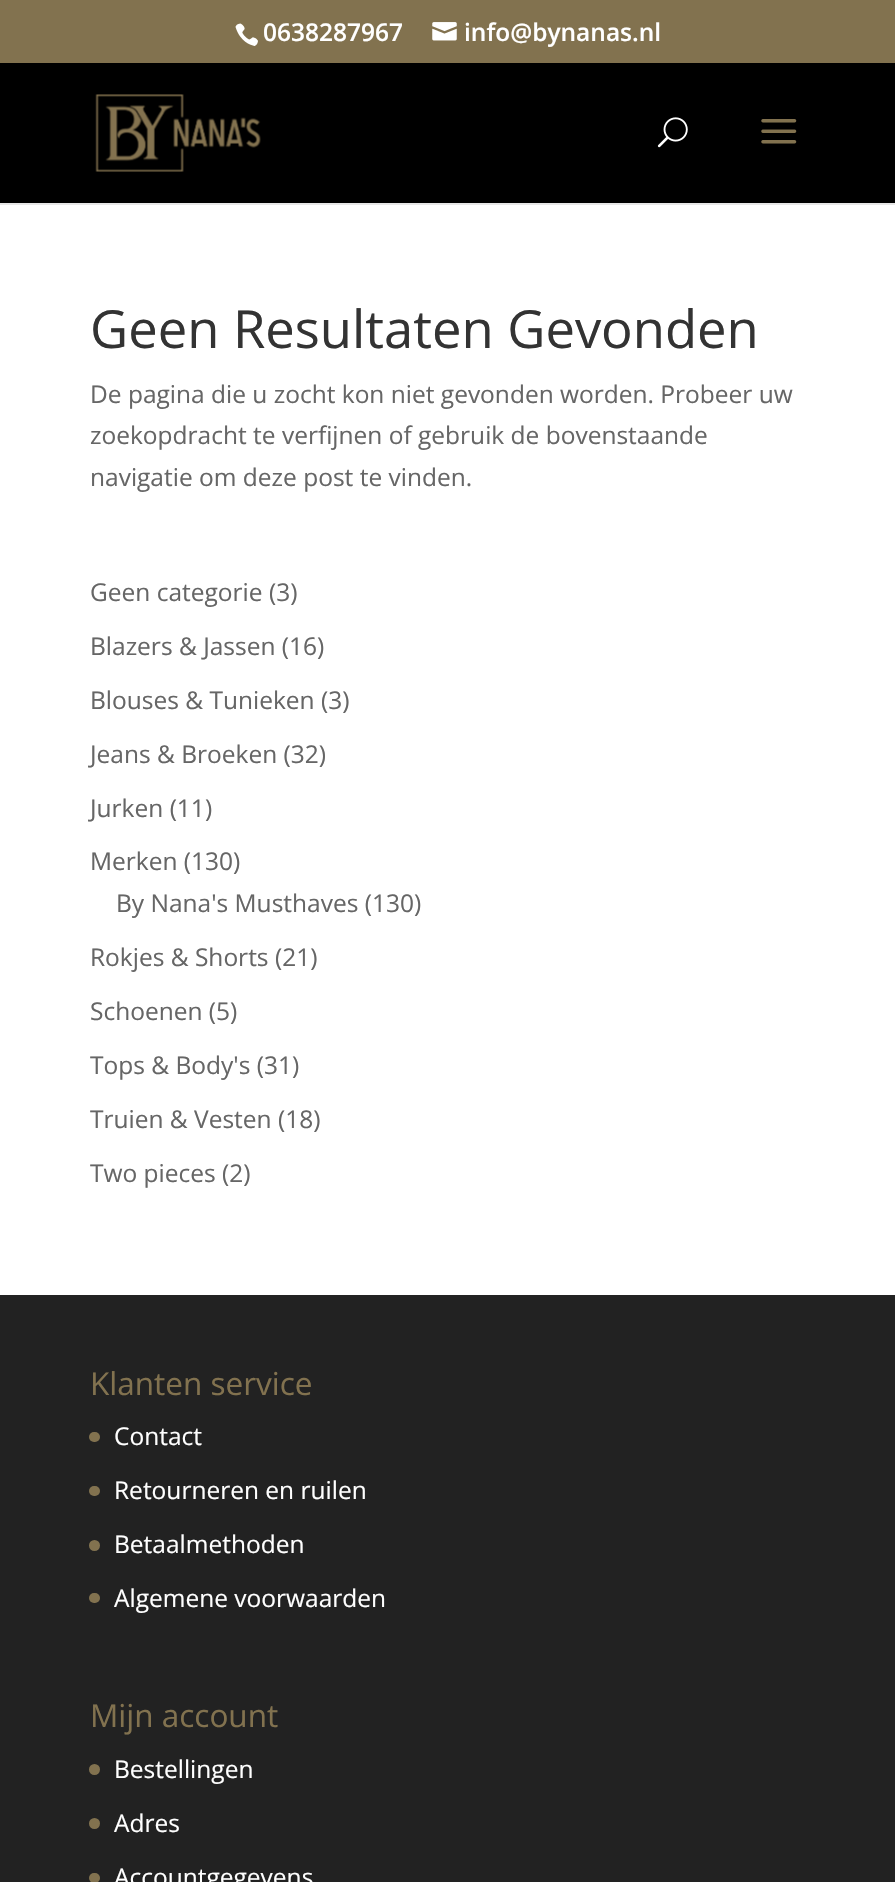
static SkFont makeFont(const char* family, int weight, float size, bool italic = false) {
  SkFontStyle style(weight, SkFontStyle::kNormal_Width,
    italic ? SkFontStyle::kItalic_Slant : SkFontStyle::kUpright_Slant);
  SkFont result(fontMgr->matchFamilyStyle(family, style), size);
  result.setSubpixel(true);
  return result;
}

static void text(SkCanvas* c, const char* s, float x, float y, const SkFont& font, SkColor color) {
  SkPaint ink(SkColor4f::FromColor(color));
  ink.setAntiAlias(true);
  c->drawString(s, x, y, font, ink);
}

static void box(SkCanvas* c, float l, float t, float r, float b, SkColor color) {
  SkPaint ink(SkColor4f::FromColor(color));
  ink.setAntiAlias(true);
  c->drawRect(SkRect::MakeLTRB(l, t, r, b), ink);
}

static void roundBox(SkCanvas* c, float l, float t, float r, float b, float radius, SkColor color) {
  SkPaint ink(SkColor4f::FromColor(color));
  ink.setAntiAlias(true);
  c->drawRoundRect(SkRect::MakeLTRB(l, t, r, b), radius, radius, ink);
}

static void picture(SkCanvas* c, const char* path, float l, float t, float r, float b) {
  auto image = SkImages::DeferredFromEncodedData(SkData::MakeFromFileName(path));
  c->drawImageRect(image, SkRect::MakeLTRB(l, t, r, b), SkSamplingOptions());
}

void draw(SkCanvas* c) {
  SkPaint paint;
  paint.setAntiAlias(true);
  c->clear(0xffffffff);
  box(c, 0, 0, 895, 63, 0xff82724f);
  picture(c, "img_01.png", 235, 23, 258, 46);
  SkFont face1 = makeFont("Open Sans", 600, 24.5f);
  text(c, "0638287967", 263, 41, face1, 0xffffffff);
  picture(c, "img_02.png", 432, 22, 457, 41);
  text(c, "info@bynanas.nl", 464, 41, face1, 0xffffffff);
  box(c, 0, 203, 895, 205, 0xffe6e6e6);
  box(c, 0, 63, 895, 203, 0xff000000);
  picture(c, "img_03.png", 95, 94, 261, 172);
  picture(c, "img_04.png", 657, 117, 688, 148);
  picture(c, "img_05.png", 761, 119, 797, 144);
  SkFont face2 = makeFont("Open Sans", 400, 52.5f);
  text(c, "Geen Resultaten Gevonden", 90, 348, face2, 0xff333333);
  SkFont face3 = makeFont("Open Sans", 400, 24.5f);
  text(c, "De pagina die u zocht kon niet gevonden worden. Probeer uw", 90, 403, face3, 0xff666666);
  text(c, "zoekopdracht te verfijnen of gebruik de bovenstaande", 90, 444, face3, 0xff666666);
  text(c, "navigatie om deze post te vinden.", 90, 486, face3, 0xff666666);
  text(c, "Geen categorie (3)", 90, 601, face3, 0xff666666);
  text(c, "Blazers & Jassen (16)", 90, 655, face3, 0xff666666);
  text(c, "Blouses & Tunieken (3)", 90, 709, face3, 0xff666666);
  text(c, "Jeans & Broeken (32)", 90, 763, face3, 0xff666666);
  text(c, "Jurken (11)", 90, 817, face3, 0xff666666);
  text(c, "Merken (130)", 90, 870, face3, 0xff666666);
  text(c, "By Nana's Musthaves (130)", 116, 912, face3, 0xff666666);
  text(c, "Rokjes & Shorts (21)", 90, 966, face3, 0xff666666);
  text(c, "Schoenen (5)", 90, 1020, face3, 0xff666666);
  text(c, "Tops & Body's (31)", 90, 1074, face3, 0xff666666);
  text(c, "Truien & Vesten (18)", 90, 1128, face3, 0xff666666);
  text(c, "Two pieces (2)", 90, 1182, face3, 0xff666666);
  box(c, 0, 1295, 895, 1882, 0xff222222);
  SkFont face4 = makeFont("Open Sans", 400, 31.5f);
  text(c, "Klanten service", 90, 1395, face4, 0xff82724f);
  roundBox(c, 89, 1432, 100, 1442, 5, 0xff82724f);
  text(c, "Contact", 114, 1445, face3, 0xffffffff);
  roundBox(c, 89, 1486, 100, 1496, 5, 0xff82724f);
  text(c, "Retourneren en ruilen", 114, 1499, face3, 0xffffffff);
  paint.setColor(0xff82724f);
  c->drawCircle(94.5f, 1545.5f, 5.5f, paint);
  text(c, "Betaalmethoden", 114, 1553, face3, 0xffffffff);
  roundBox(c, 89, 1593, 100, 1603, 5, 0xff82724f);
  text(c, "Algemene voorwaarden", 114, 1607, face3, 0xffffffff);
  text(c, "Mijn account", 90, 1727, face4, 0xff82724f);
  c->drawCircle(94.5f, 1769.5f, 5.5f, paint);
  text(c, "Bestellingen", 114, 1778, face3, 0xffffffff);
  c->drawCircle(94.5f, 1823.5f, 5.5f, paint);
  text(c, "Adres", 114, 1832, face3, 0xffffffff);
  roundBox(c, 89, 1873, 100, 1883, 5, 0xff82724f);
  text(c, "Accountgegevens", 114, 1886, face3, 0xffffffff);
}
